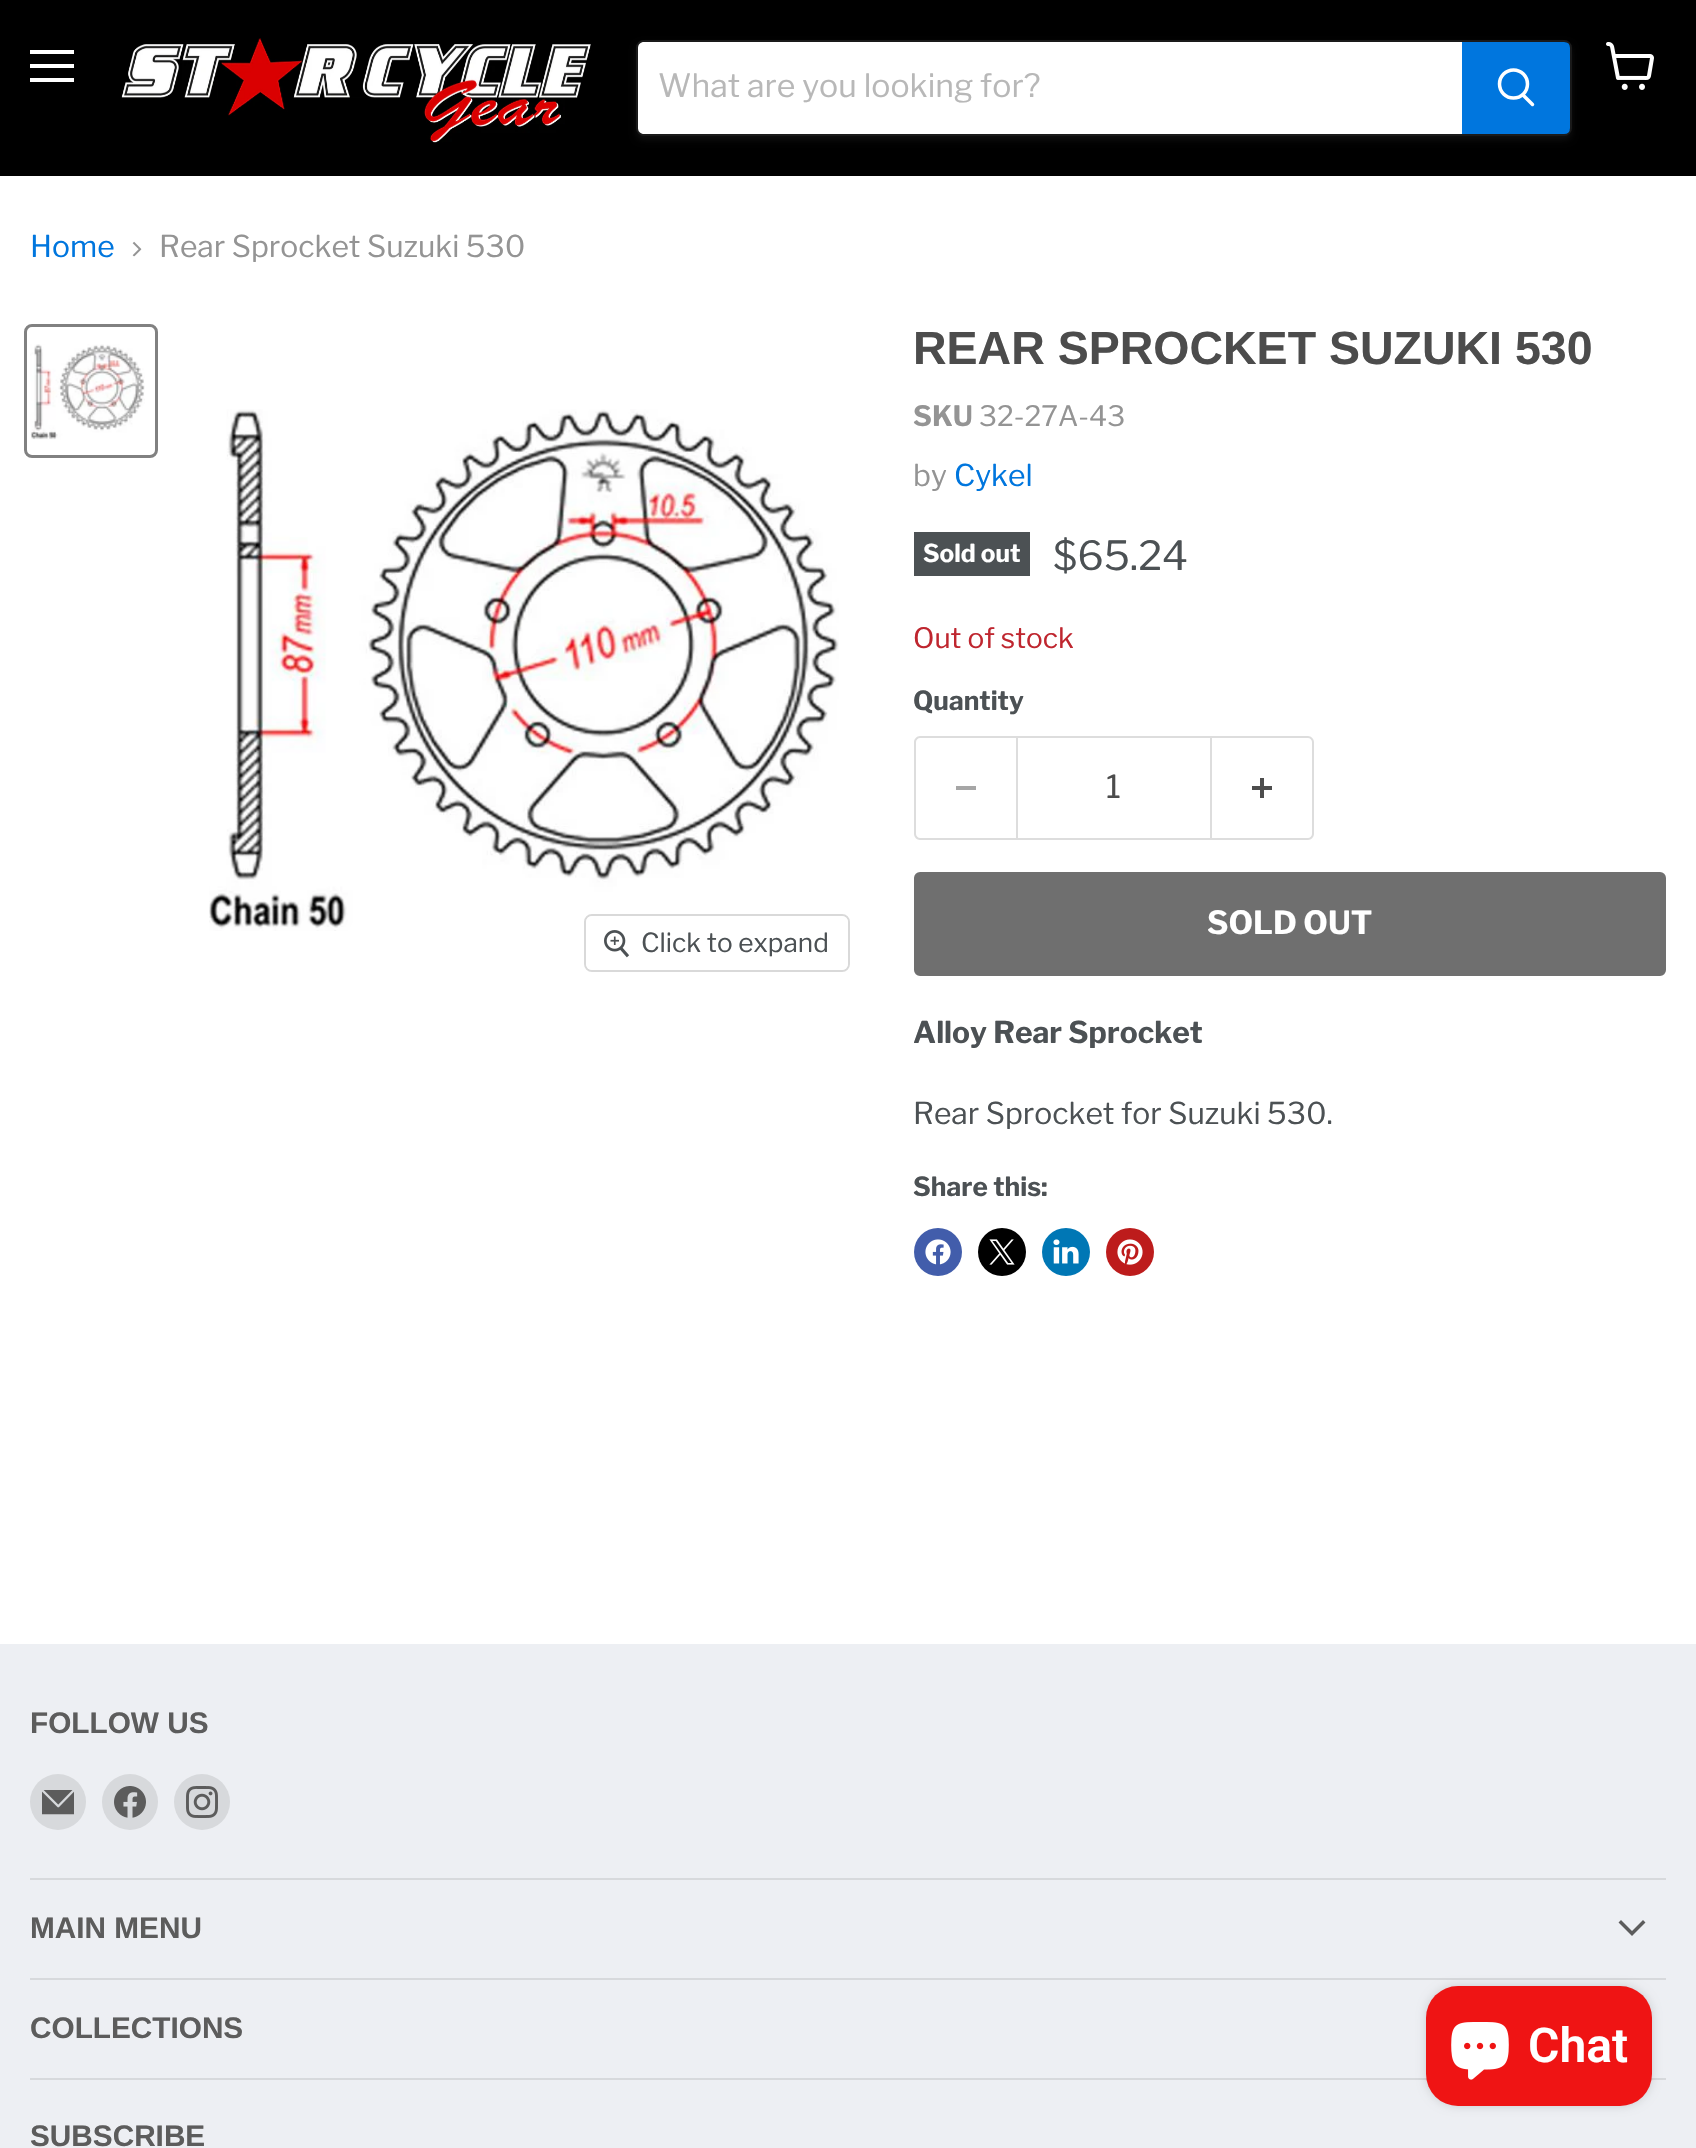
static SkFont makeFont(const char* family, int weight, float size, bool italic = false) {
  SkFontStyle style(weight, SkFontStyle::kNormal_Width,
    italic ? SkFontStyle::kItalic_Slant : SkFontStyle::kUpright_Slant);
  SkFont result(fontMgr->matchFamilyStyle(family, style), size);
  result.setSubpixel(true);
  return result;
}

static void text(SkCanvas* c, const char* s, float x, float y, const SkFont& font, SkColor color) {
  SkPaint ink(SkColor4f::FromColor(color));
  ink.setAntiAlias(true);
  c->drawString(s, x, y, font, ink);
}

static void box(SkCanvas* c, float l, float t, float r, float b, SkColor color) {
  SkPaint ink(SkColor4f::FromColor(color));
  ink.setAntiAlias(true);
  c->drawRect(SkRect::MakeLTRB(l, t, r, b), ink);
}

static void roundBox(SkCanvas* c, float l, float t, float r, float b, float radius, SkColor color) {
  SkPaint ink(SkColor4f::FromColor(color));
  ink.setAntiAlias(true);
  c->drawRoundRect(SkRect::MakeLTRB(l, t, r, b), radius, radius, ink);
}

static void picture(SkCanvas* c, const char* path, float l, float t, float r, float b) {
  auto image = SkImages::DeferredFromEncodedData(SkData::MakeFromFileName(path));
  c->drawImageRect(image, SkRect::MakeLTRB(l, t, r, b), SkSamplingOptions());
}

void draw(SkCanvas* c) {
  SkPaint paint;
  paint.setAntiAlias(true);
  c->clear(0xffffffff);
  box(c, 0, 0, 1696, 176, 0xff000000);
  box(c, 30, 50, 74, 54, 0xffffffff);
  box(c, 30, 64, 74, 68, 0xffffffff);
  box(c, 30, 78, 74, 82, 0xffffffff);
  picture(c, "img_01.png", 1606, 42, 1654, 90);
  picture(c, "img_02.png", 121, 38, 591, 143);
  c->save();
  c->clipPath(SkPathBuilder(SkPathFillType::kEvenOdd).moveTo(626, 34).lineTo(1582, 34).lineTo(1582, 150).lineTo(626, 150).close().moveTo(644, 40).lineTo(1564, 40).cubicTo(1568.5f, 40, 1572, 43.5f, 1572, 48).lineTo(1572, 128).cubicTo(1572, 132.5f, 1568.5f, 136, 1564, 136).lineTo(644, 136).cubicTo(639.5f, 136, 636, 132.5f, 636, 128).lineTo(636, 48).cubicTo(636, 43.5f, 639.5f, 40, 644, 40).close().detach(), true);
  paint.setColor(0x1c808080);
  paint.setMaskFilter(SkMaskFilter::MakeBlur(kNormal_SkBlurStyle, 3));
  c->drawRoundRect(SkRect::MakeLTRB(636, 44, 1572, 140), 8, 8, paint);
  paint.setMaskFilter(nullptr);
  c->restore();
  paint.setStyle(SkPaint::kStroke_Style);
  paint.setStrokeWidth(2);
  paint.setColor(0x33808080);
  c->drawRoundRect(SkRect::MakeLTRB(637, 41, 1571, 135), 7, 7, paint);
  paint.setStyle(SkPaint::kFill_Style);
  paint.setColor(0xffffffff);
  c->drawPath(SkPathBuilder().moveTo(644, 42).lineTo(1462, 42).lineTo(1462, 134).lineTo(644, 134).cubicTo(640.5f, 134, 638, 131.5f, 638, 128).lineTo(638, 48).cubicTo(638, 44.5f, 640.5f, 42, 644, 42).close().detach(), paint);
  SkFont face1 = makeFont("Libre Franklin", 400, 32);
  text(c, "What are you looking for?", 658, 97, face1, 0xffb8b8b8);
  paint.setColor(0xff0076de);
  c->drawPath(SkPathBuilder().moveTo(1463, 43).lineTo(1564, 43).cubicTo(1567, 43, 1569, 45, 1569, 48).lineTo(1569, 128).cubicTo(1569, 131, 1567, 133, 1564, 133).lineTo(1463, 133).close().detach(), paint);
  paint.setStyle(SkPaint::kStroke_Style);
  c->drawPath(SkPathBuilder().moveTo(1463, 43).lineTo(1564, 43).cubicTo(1567, 43, 1569, 45, 1569, 48).lineTo(1569, 128).cubicTo(1569, 131, 1567, 133, 1564, 133).lineTo(1463, 133).close().detach(), paint);
  paint.setStrokeWidth(3.5f);
  paint.setStrokeCap(SkPaint::kRound_Cap);
  paint.setColor(0xffffffff);
  c->drawPath(SkPathBuilder().moveTo(1532.5f, 104.5f).lineTo(1523, 95).detach(), paint);
  paint.setStrokeCap(SkPaint::kButt_Cap);
  c->drawCircle(1513.5f, 84, 14, paint);
  SkFont face2 = makeFont("Libre Franklin", 400, 30);
  text(c, "Home", 30, 257, face2, 0xff0076de);
  picture(c, "img_03.png", 132, 241, 142, 257);
  text(c, "Rear Sprocket Suzuki 530", 159, 257, face2, 0xff949494);
  paint.setStrokeWidth(3);
  paint.setColor(0xff818181);
  c->drawRoundRect(SkRect::MakeLTRB(25.5f, 325.5f, 156.5f, 456.5f), 6.5f, 6.5f, paint);
  picture(c, "img_04.png", 30, 344, 145, 440);
  picture(c, "img_05.png", 209, 409, 839, 931);
  paint.setStrokeWidth(2);
  paint.setColor(0xffd9d9d9);
  c->drawRoundRect(SkRect::MakeLTRB(585, 915, 849, 971), 7, 7, paint);
  roundBox(c, 586, 916, 848, 970, 6, 0xe6ffffff);
  picture(c, "img_06.png", 604, 930, 630, 958);
  SkFont face3 = makeFont("Libre Franklin", 400, 26.25f);
  text(c, "Click to expand", 641, 952, face3, 0xff4c5154);
  SkFont face4 = makeFont("Arimo", 700, 46.5f);
  text(c, "REAR SPROCKET SUZUKI 530", 913, 364, face4, 0xff4c4c4c);
  SkFont face5 = makeFont("Libre Franklin", 700, 28);
  text(c, "SKU", 913, 426, face5, 0xff949494);
  SkFont face6 = makeFont("Libre Franklin", 400, 28);
  text(c, "32-27A-43", 979, 426, face6, 0xff949494);
  text(c, "by", 913, 486, face2, 0xff949494);
  text(c, "Cykel", 954, 486, face2, 0xff0076de);
  box(c, 914, 532, 1030, 576, 0xff4c5154);
  SkFont face7 = makeFont("Libre Franklin", 700, 24.5f);
  text(c, "Sold out", 923, 562, face7, 0xffffffff);
  SkFont face8 = makeFont("Libre Franklin", 400, 40);
  text(c, "$65.24", 1053, 570, face8, 0xff4c5154);
  text(c, "Out of stock", 913, 648, face6, 0xffbf262f);
  SkFont face9 = makeFont("Libre Franklin", 700, 26.25f);
  text(c, "Quantity", 913, 710, face9, 0xff4c5154);
  paint.setStyle(SkPaint::kFill_Style);
  paint.setColor(0xffdddddd);
  c->drawPath(SkPathBuilder(SkPathFillType::kEvenOdd).moveTo(920, 736).lineTo(1016, 736).lineTo(1016, 840).lineTo(920, 840).cubicTo(917, 840, 914, 837, 914, 834).lineTo(914, 742).cubicTo(914, 739, 917, 736, 920, 736).close().moveTo(920, 738).lineTo(1016, 738).lineTo(1016, 838).lineTo(920, 838).cubicTo(918, 838, 916, 836, 916, 834).lineTo(916, 742).cubicTo(916, 740, 918, 738, 920, 738).close().detach(), paint);
  box(c, 956, 786, 976, 790, 0xffa6a6a6);
  paint.setStyle(SkPaint::kStroke_Style);
  c->drawRect(SkRect::MakeLTRB(1017, 737, 1211, 839), paint);
  SkFont face10 = makeFont("Libre Franklin", 400, 31.75f);
  text(c, "1", 1106, 798, face10, 0xff4c4c4c);
  paint.setStyle(SkPaint::kFill_Style);
  c->drawPath(SkPathBuilder(SkPathFillType::kEvenOdd).moveTo(1212, 736).lineTo(1308, 736).cubicTo(1311, 736, 1314, 739, 1314, 742).lineTo(1314, 834).cubicTo(1314, 837, 1311, 840, 1308, 840).lineTo(1212, 840).close().moveTo(1212, 738).lineTo(1308, 738).cubicTo(1310, 738, 1312, 740, 1312, 742).lineTo(1312, 834).cubicTo(1312, 836, 1310, 838, 1308, 838).lineTo(1212, 838).close().detach(), paint);
  picture(c, "img_07.png", 1252, 778, 1272, 798);
  paint.setColor(0xff6f6f6f);
  c->drawRoundRect(SkRect::MakeLTRB(915, 873, 1665, 975), 5, 5, paint);
  paint.setStyle(SkPaint::kStroke_Style);
  c->drawRoundRect(SkRect::MakeLTRB(915, 873, 1665, 975), 5, 5, paint);
  SkFont face11 = makeFont("Libre Franklin", 700, 31.75f);
  text(c, "SOLD OUT", 1207, 934, face11, 0xffffffff);
  SkFont face12 = makeFont("Libre Franklin", 700, 30);
  text(c, "Alloy Rear Sprocket", 913, 1043, face12, 0xff4c5154);
  text(c, "Rear Sprocket for Suzuki 530.", 913, 1124, face2, 0xff4c5154);
  text(c, "Share this:", 913, 1196, face9, 0xff4c5154);
  paint.setStyle(SkPaint::kFill_Style);
  paint.setColor(0xff425dab);
  c->drawCircle(938, 1252, 24, paint);
  picture(c, "img_08.png", 925, 1239, 951, 1265);
  paint.setColor(0xff000000);
  c->drawCircle(1002, 1252, 24, paint);
  picture(c, "img_09.png", 989, 1239, 1015, 1265);
  paint.setColor(0xff0077b5);
  c->drawCircle(1066, 1252, 24, paint);
  picture(c, "img_10.png", 1053, 1239, 1079, 1264);
  paint.setColor(0xffbd1c1c);
  c->drawCircle(1130, 1252, 24, paint);
  picture(c, "img_11.png", 1117, 1239, 1143, 1265);
  box(c, 0, 1644, 1696, 2148, 0xffedeff3);
  box(c, 30, 1878, 1666, 1880, 0xffd7d9dc);
  SkFont face13 = makeFont("Arimo", 700, 29.75f);
  text(c, "FOLLOW US", 30, 1733, face13, 0xff5c5c5c);
  paint.setColor(0xffd7d9dc);
  c->drawCircle(58, 1802, 28, paint);
  picture(c, "img_12.png", 42, 1790, 74, 1815);
  c->drawCircle(130, 1802, 28, paint);
  picture(c, "img_13.png", 114, 1786, 146, 1818);
  c->drawCircle(202, 1802, 28, paint);
  picture(c, "img_14.png", 186, 1786, 218, 1818);
  box(c, 30, 1978, 1666, 1980, 0xffd7d9dc);
  text(c, "MAIN MENU", 30, 1938, face13, 0xff5c5c5c);
  paint.setStyle(SkPaint::kStroke_Style);
  paint.setStrokeWidth(3.5f);
  paint.setStrokeCap(SkPaint::kSquare_Cap);
  paint.setColor(0xff5c5c5c);
  c->drawPath(SkPathBuilder().moveTo(1632, 1933.5f).lineTo(1643, 1922.5f).moveTo(1632, 1933.5f).lineTo(1621, 1922.5f).detach(), paint);
  box(c, 30, 2078, 1666, 2080, 0xffd7d9dc);
  text(c, "COLLECTIONS", 30, 2038, face13, 0xff5c5c5c);
  text(c, "SUBSCRIBE", 30, 2146, face13, 0xff5c5c5c);
  paint.setStyle(SkPaint::kFill_Style);
  paint.setColor(0x26000000);
  paint.setMaskFilter(SkMaskFilter::MakeBlur(kNormal_SkBlurStyle, 5));
  c->drawRoundRect(SkRect::MakeLTRB(1426, 1986, 1652, 2106), 32, 32, paint);
  paint.setMaskFilter(nullptr);
  roundBox(c, 1426, 1986, 1652, 2106, 32, 0xffef1414);
  picture(c, "img_15.png", 1451, 2022, 1509, 2080);
  SkFont face14 = makeFont("Roboto", 600, 48);
  text(c, "Chat", 1528, 2062, face14, 0xffffffff);
}
